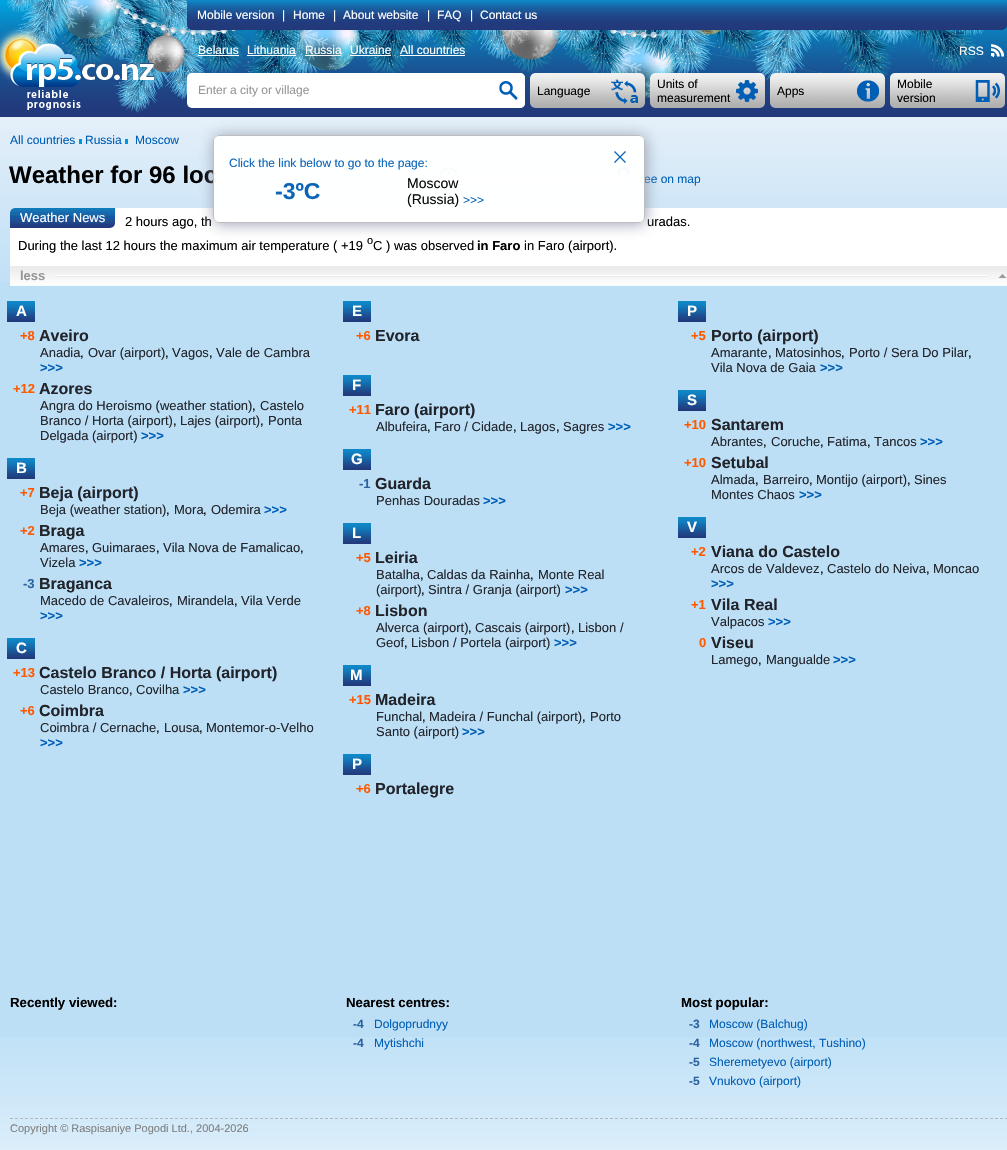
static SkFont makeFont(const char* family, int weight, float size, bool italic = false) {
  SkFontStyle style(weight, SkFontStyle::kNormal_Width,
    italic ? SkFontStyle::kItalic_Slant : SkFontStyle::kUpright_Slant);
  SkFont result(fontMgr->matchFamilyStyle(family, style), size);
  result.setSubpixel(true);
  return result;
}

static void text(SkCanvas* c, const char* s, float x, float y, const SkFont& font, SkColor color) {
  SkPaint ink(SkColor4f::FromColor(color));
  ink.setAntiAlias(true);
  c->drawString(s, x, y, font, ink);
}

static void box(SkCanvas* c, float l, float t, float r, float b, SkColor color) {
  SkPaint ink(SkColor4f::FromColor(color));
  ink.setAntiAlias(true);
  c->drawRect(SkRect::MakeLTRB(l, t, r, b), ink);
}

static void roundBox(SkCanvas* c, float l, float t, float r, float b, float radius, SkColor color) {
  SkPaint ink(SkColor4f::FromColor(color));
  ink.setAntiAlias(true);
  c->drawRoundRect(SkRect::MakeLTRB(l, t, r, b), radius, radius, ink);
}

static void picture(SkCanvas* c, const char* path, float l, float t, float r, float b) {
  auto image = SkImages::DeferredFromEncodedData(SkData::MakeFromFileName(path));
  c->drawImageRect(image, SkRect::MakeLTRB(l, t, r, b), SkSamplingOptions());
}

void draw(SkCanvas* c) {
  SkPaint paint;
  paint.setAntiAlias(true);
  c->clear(0xffbddff6);
  picture(c, "img_01.png", 0, 123, 1007, 282);
  picture(c, "img_02.png", 0, 0, 1007, 123);
  picture(c, "img_03.png", 7, 0, 984, 113);
  picture(c, "img_04.png", 187, 0, 1007, 30);
  SkFont face1 = makeFont("Liberation Sans", 400, 12);
  text(c, "Mobile version", 197, 19, face1, 0xffffffff);
  text(c, "|", 282, 19, face1, 0xffffffff);
  text(c, "Home", 293, 19, face1, 0xffffffff);
  text(c, "|", 333, 19, face1, 0xffffffff);
  text(c, "About website", 343, 19, face1, 0xffffffff);
  text(c, "|", 427, 19, face1, 0xffffffff);
  text(c, "FAQ", 437, 19, face1, 0xffffffff);
  text(c, "|", 470, 19, face1, 0xffffffff);
  text(c, "Contact us", 480, 19, face1, 0xffffffff);
  picture(c, "img_05.png", 0, 27, 154, 110);
  text(c, "Belarus", 198, 54, face1, 0xffffffff);
  box(c, 198, 55, 239, 56, 0xffffffff);
  text(c, "Lithuania", 247, 54, face1, 0xffffffff);
  box(c, 247, 55, 296, 56, 0xffffffff);
  text(c, "Russia", 305, 54, face1, 0xffffffff);
  box(c, 305, 55, 341, 56, 0xffffffff);
  text(c, "Ukraine", 350, 54, face1, 0xffffffff);
  box(c, 350, 55, 391, 56, 0xffffffff);
  text(c, "All countries", 400, 54, face1, 0xffffffff);
  box(c, 400, 55, 465, 56, 0xffffffff);
  text(c, "RSS", 959, 55, face1, 0xffffffff);
  picture(c, "img_06.png", 991, 44, 1004, 57);
  roundBox(c, 187, 73, 525, 108, 5, 0xffffffff);
  text(c, "Enter a city or village", 198, 94, face1, 0xff969696);
  picture(c, "img_07.png", 499, 73, 525, 108);
  picture(c, "img_08.png", 530, 73, 645, 108);
  text(c, "Language", 537, 95, face1, 0xff000000);
  picture(c, "img_09.png", 650, 73, 765, 108);
  text(c, "Units of", 657, 88, face1, 0xff000000);
  text(c, "measurement", 657, 102, face1, 0xff000000);
  picture(c, "img_10.png", 770, 73, 885, 108);
  text(c, "Apps", 777, 95, face1, 0xff000000);
  picture(c, "img_11.png", 890, 73, 1005, 108);
  text(c, "Mobile", 897, 88, face1, 0xff000000);
  text(c, "version", 897, 102, face1, 0xff000000);
  text(c, "All countries", 10, 144, face1, 0xff005eb5);
  box(c, 79, 139, 82, 144, 0xff0096de);
  text(c, "Russia", 85, 144, face1, 0xff005eb5);
  box(c, 125, 139, 128, 144, 0xff0096de);
  text(c, "Moscow", 135, 144, face1, 0xff005eb5);
  SkFont face2 = makeFont("Liberation Sans", 700, 24);
  text(c, "Weather for 96 loc", 9, 183, face2, 0xff000000);
  picture(c, "img_12.png", 439, 167, 458, 186);
  picture(c, "img_13.png", 617, 167, 630, 185);
  text(c, "ee on map", 644, 183, face1, 0xff005eb5);
  paint.setColor(0xffffffff);
  c->drawPath(SkPathBuilder().moveTo(15, 208).lineTo(1007, 208).cubicTo(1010, 208, 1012, 210, 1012, 213).lineTo(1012, 266).lineTo(10, 266).lineTo(10, 213).cubicTo(10, 210, 12, 208, 15, 208).close().detach(), paint);
  picture(c, "img_14.png", 10, 208, 115, 228);
  SkFont face3 = makeFont("Liberation Sans", 400, 13);
  text(c, "Weather News", 20, 222, face3, 0xffffffff);
  text(c, "2 hours ago, th", 125, 226, face3, 0xff000000);
  text(c, "uradas.", 647, 226, face3, 0xff000000);
  text(c, "During the last 12 hours the maximum air temperature ( +19", 18, 250, face3, 0xff000000);
  SkFont face4 = makeFont("Liberation Sans", 400, 11);
  text(c, "o", 367, 244, face4, 0xff000000);
  text(c, "C ) was observed", 373, 250, face3, 0xff000000);
  SkFont face5 = makeFont("Liberation Sans", 700, 13);
  text(c, "in Faro", 477, 250, face5, 0xff000000);
  text(c, "in Faro (airport).", 524, 250, face3, 0xff000000);
  picture(c, "img_15.png", 10, 266, 1007, 286);
  box(c, 10, 275, 55, 277, 0xfff4f4f4);
  text(c, "less", 20, 280, face5, 0xff969696);
  picture(c, "img_16.png", 987, 274, 1007, 278);
  picture(c, "img_17.png", 7, 301, 35, 322);
  SkFont face6 = makeFont("Liberation Sans", 700, 15);
  text(c, "A", 16, 316, face6, 0xffffffff);
  text(c, "+8", 20, 340, face5, 0xffff5900);
  SkFont face7 = makeFont("Liberation Sans", 700, 16);
  text(c, "Aveiro", 39, 341, face7, 0xff21242b);
  text(c, "Anadia", 40, 357, face3, 0xff21242b);
  text(c, ",", 80, 357, face3, 0xff000000);
  text(c, "Ovar (airport)", 88, 357, face3, 0xff21242b);
  text(c, ",", 165, 357, face3, 0xff000000);
  text(c, "Vagos", 172, 357, face3, 0xff21242b);
  text(c, ",", 209, 357, face3, 0xff000000);
  text(c, "Vale de Cambra", 216, 357, face3, 0xff21242b);
  text(c, ">>>", 40, 372, face5, 0xff005eb5);
  text(c, "+12", 13, 393, face5, 0xffff5900);
  text(c, "Azores", 39, 394, face7, 0xff21242b);
  text(c, "Angra do Heroismo (weather station)", 40, 410, face3, 0xff21242b);
  text(c, ",", 252, 410, face3, 0xff000000);
  text(c, "Castelo", 260, 410, face3, 0xff21242b);
  text(c, "Branco / Horta (airport)", 40, 425, face3, 0xff21242b);
  text(c, ",", 173, 425, face3, 0xff000000);
  text(c, "Lajes (airport)", 180, 425, face3, 0xff21242b);
  text(c, ",", 260, 425, face3, 0xff000000);
  text(c, "Ponta", 268, 425, face3, 0xff21242b);
  text(c, "Delgada (airport)", 40, 440, face3, 0xff21242b);
  text(c, ">>>", 141, 440, face5, 0xff005eb5);
  picture(c, "img_17.png", 7, 458, 35, 479);
  text(c, "B", 16, 473, face6, 0xffffffff);
  text(c, "+7", 20, 497, face5, 0xffff5900);
  text(c, "Beja (airport)", 39, 498, face7, 0xff21242b);
  text(c, "Beja (weather station)", 40, 514, face3, 0xff21242b);
  text(c, ",", 166, 514, face3, 0xff000000);
  text(c, "Mora", 174, 514, face3, 0xff21242b);
  text(c, ",", 203, 514, face3, 0xff000000);
  text(c, "Odemira", 211, 514, face3, 0xff21242b);
  text(c, ">>>", 264, 514, face5, 0xff005eb5);
  text(c, "+2", 20, 535, face5, 0xffff5900);
  text(c, "Braga", 39, 536, face7, 0xff21242b);
  text(c, "Amares", 40, 552, face3, 0xff21242b);
  text(c, ",", 85, 552, face3, 0xff000000);
  text(c, "Guimaraes", 92, 552, face3, 0xff21242b);
  text(c, ",", 156, 552, face3, 0xff000000);
  text(c, "Vila Nova de Famalicao", 163, 552, face3, 0xff21242b);
  text(c, ",", 300, 552, face3, 0xff000000);
  text(c, "Vizela", 40, 567, face3, 0xff21242b);
  text(c, ">>>", 79, 567, face5, 0xff005eb5);
  text(c, "-3", 23, 588, face5, 0xff2b63a0);
  text(c, "Braganca", 39, 589, face7, 0xff21242b);
  text(c, "Macedo de Cavaleiros", 40, 605, face3, 0xff21242b);
  text(c, ",", 169, 605, face3, 0xff000000);
  text(c, "Mirandela", 177, 605, face3, 0xff21242b);
  text(c, ",", 234, 605, face3, 0xff000000);
  text(c, "Vila Verde", 241, 605, face3, 0xff21242b);
  text(c, ">>>", 40, 620, face5, 0xff005eb5);
  picture(c, "img_17.png", 7, 638, 35, 659);
  text(c, "C", 16, 653, face6, 0xffffffff);
  text(c, "+13", 13, 677, face5, 0xffff5900);
  text(c, "Castelo Branco / Horta (airport)", 39, 678, face7, 0xff21242b);
  text(c, "Castelo Branco", 40, 694, face3, 0xff21242b);
  text(c, ",", 129, 694, face3, 0xff000000);
  text(c, "Covilha", 136, 694, face3, 0xff21242b);
  text(c, ">>>", 183, 694, face5, 0xff005eb5);
  text(c, "+6", 20, 715, face5, 0xffff5900);
  text(c, "Coimbra", 39, 716, face7, 0xff21242b);
  text(c, "Coimbra / Cernache", 40, 732, face3, 0xff21242b);
  text(c, ",", 156, 732, face3, 0xff000000);
  text(c, "Lousa", 164, 732, face3, 0xff21242b);
  text(c, ",", 199, 732, face3, 0xff000000);
  text(c, "Montemor-o-Velho", 206, 732, face3, 0xff21242b);
  text(c, ">>>", 40, 747, face5, 0xff005eb5);
  picture(c, "img_17.png", 343, 301, 371, 322);
  text(c, "E", 352, 316, face6, 0xffffffff);
  text(c, "+6", 356, 340, face5, 0xffff5900);
  text(c, "Evora", 375, 341, face7, 0xff21242b);
  picture(c, "img_17.png", 343, 375, 371, 396);
  text(c, "F", 352, 390, face6, 0xffffffff);
  text(c, "+11", 349, 414, face5, 0xffff5900);
  text(c, "Faro (airport)", 375, 415, face7, 0xff21242b);
  text(c, "Albufeira", 376, 431, face3, 0xff21242b);
  text(c, ",", 427, 431, face3, 0xff000000);
  text(c, "Faro / Cidade", 434, 431, face3, 0xff21242b);
  text(c, ",", 513, 431, face3, 0xff000000);
  text(c, "Lagos", 520, 431, face3, 0xff21242b);
  text(c, ",", 556, 431, face3, 0xff000000);
  text(c, "Sagres", 563, 431, face3, 0xff21242b);
  text(c, ">>>", 608, 431, face5, 0xff005eb5);
  picture(c, "img_17.png", 343, 449, 371, 470);
  text(c, "G", 351, 464, face6, 0xffffffff);
  text(c, "-1", 359, 488, face5, 0xff2b63a0);
  text(c, "Guarda", 375, 489, face7, 0xff21242b);
  text(c, "Penhas Douradas", 376, 505, face3, 0xff21242b);
  text(c, ">>>", 483, 505, face5, 0xff005eb5);
  picture(c, "img_17.png", 343, 523, 371, 544);
  text(c, "L", 352, 538, face6, 0xffffffff);
  text(c, "+5", 356, 562, face5, 0xffff5900);
  text(c, "Leiria", 375, 563, face7, 0xff21242b);
  text(c, "Batalha", 376, 579, face3, 0xff21242b);
  text(c, ",", 420, 579, face3, 0xff000000);
  text(c, "Caldas da Rainha", 427, 579, face3, 0xff21242b);
  text(c, ",", 530, 579, face3, 0xff000000);
  text(c, "Monte Real", 538, 579, face3, 0xff21242b);
  text(c, "(airport)", 376, 594, face3, 0xff21242b);
  text(c, ",", 421, 594, face3, 0xff000000);
  text(c, "Sintra / Granja (airport)", 428, 594, face3, 0xff21242b);
  text(c, ">>>", 565, 594, face5, 0xff005eb5);
  text(c, "+8", 356, 615, face5, 0xffff5900);
  text(c, "Lisbon", 375, 616, face7, 0xff21242b);
  text(c, "Alverca (airport)", 376, 632, face3, 0xff21242b);
  text(c, ",", 468, 632, face3, 0xff000000);
  text(c, "Cascais (airport)", 475, 632, face3, 0xff21242b);
  text(c, ",", 571, 632, face3, 0xff000000);
  text(c, "Lisbon /", 578, 632, face3, 0xff21242b);
  text(c, "Geof", 376, 647, face3, 0xff21242b);
  text(c, ",", 404, 647, face3, 0xff000000);
  text(c, "Lisbon / Portela (airport)", 411, 647, face3, 0xff21242b);
  text(c, ">>>", 554, 647, face5, 0xff005eb5);
  picture(c, "img_17.png", 343, 665, 371, 686);
  text(c, "M", 350, 680, face6, 0xffffffff);
  text(c, "+15", 349, 704, face5, 0xffff5900);
  text(c, "Madeira", 375, 705, face7, 0xff21242b);
  text(c, "Funchal", 376, 721, face3, 0xff21242b);
  text(c, ",", 422, 721, face3, 0xff000000);
  text(c, "Madeira / Funchal (airport)", 429, 721, face3, 0xff21242b);
  text(c, ",", 582, 721, face3, 0xff000000);
  text(c, "Porto", 590, 721, face3, 0xff21242b);
  text(c, "Santo (airport)", 376, 736, face3, 0xff21242b);
  text(c, ">>>", 462, 736, face5, 0xff005eb5);
  picture(c, "img_17.png", 343, 754, 371, 775);
  text(c, "P", 352, 769, face6, 0xffffffff);
  text(c, "+6", 356, 793, face5, 0xffff5900);
  text(c, "Portalegre", 375, 794, face7, 0xff21242b);
  picture(c, "img_17.png", 678, 301, 706, 322);
  text(c, "P", 687, 316, face6, 0xffffffff);
  text(c, "+5", 691, 340, face5, 0xffff5900);
  text(c, "Porto (airport)", 711, 341, face7, 0xff21242b);
  text(c, "Amarante", 711, 357, face3, 0xff21242b);
  text(c, ",", 768, 357, face3, 0xff000000);
  text(c, "Matosinhos", 775, 357, face3, 0xff21242b);
  text(c, ",", 841, 357, face3, 0xff000000);
  text(c, "Porto / Sera Do Pilar", 849, 357, face3, 0xff21242b);
  text(c, ",", 968, 357, face3, 0xff000000);
  text(c, "Vila Nova de Gaia", 711, 372, face3, 0xff21242b);
  text(c, ">>>", 820, 372, face5, 0xff005eb5);
  picture(c, "img_17.png", 678, 390, 706, 411);
  text(c, "S", 687, 405, face6, 0xffffffff);
  text(c, "+10", 684, 429, face5, 0xffff5900);
  text(c, "Santarem", 711, 430, face7, 0xff21242b);
  text(c, "Abrantes", 711, 446, face3, 0xff21242b);
  text(c, ",", 763, 446, face3, 0xff000000);
  text(c, "Coruche", 771, 446, face3, 0xff21242b);
  text(c, ",", 820, 446, face3, 0xff000000);
  text(c, "Fatima", 827, 446, face3, 0xff21242b);
  text(c, ",", 867, 446, face3, 0xff000000);
  text(c, "Tancos", 874, 446, face3, 0xff21242b);
  text(c, ">>>", 920, 446, face5, 0xff005eb5);
  text(c, "+10", 684, 467, face5, 0xffff5900);
  text(c, "Setubal", 711, 468, face7, 0xff21242b);
  text(c, "Almada", 711, 484, face3, 0xff21242b);
  text(c, ",", 755, 484, face3, 0xff000000);
  text(c, "Barreiro", 763, 484, face3, 0xff21242b);
  text(c, ",", 809, 484, face3, 0xff000000);
  text(c, "Montijo (airport)", 816, 484, face3, 0xff21242b);
  text(c, ",", 907, 484, face3, 0xff000000);
  text(c, "Sines", 914, 484, face3, 0xff21242b);
  text(c, "Montes Chaos", 711, 499, face3, 0xff21242b);
  text(c, ">>>", 799, 499, face5, 0xff005eb5);
  picture(c, "img_17.png", 678, 517, 706, 538);
  text(c, "V", 687, 532, face6, 0xffffffff);
  text(c, "+2", 691, 556, face5, 0xffff5900);
  text(c, "Viana do Castelo", 711, 557, face7, 0xff21242b);
  text(c, "Arcos de Valdevez", 711, 573, face3, 0xff21242b);
  text(c, ",", 820, 573, face3, 0xff000000);
  text(c, "Castelo do Neiva", 827, 573, face3, 0xff21242b);
  text(c, ",", 926, 573, face3, 0xff000000);
  text(c, "Moncao", 933, 573, face3, 0xff21242b);
  text(c, ">>>", 711, 588, face5, 0xff005eb5);
  text(c, "+1", 691, 609, face5, 0xffff5900);
  text(c, "Vila Real", 711, 610, face7, 0xff21242b);
  text(c, "Valpacos", 711, 626, face3, 0xff21242b);
  text(c, ">>>", 768, 626, face5, 0xff005eb5);
  text(c, "0", 699, 647, face5, 0xffff5900);
  text(c, "Viseu", 711, 648, face7, 0xff21242b);
  text(c, "Lamego", 711, 664, face3, 0xff21242b);
  text(c, ",", 758, 664, face3, 0xff000000);
  text(c, "Mangualde", 766, 664, face3, 0xff21242b);
  text(c, ">>>", 833, 664, face5, 0xff005eb5);
  c->save();
  c->clipPath(SkPathBuilder(SkPathFillType::kEvenOdd).moveTo(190, 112).lineTo(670, 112).lineTo(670, 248).lineTo(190, 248).close().moveTo(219, 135).lineTo(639, 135).cubicTo(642.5f, 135, 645, 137.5f, 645, 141).lineTo(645, 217).cubicTo(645, 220.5f, 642.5f, 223, 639, 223).lineTo(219, 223).cubicTo(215.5f, 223, 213, 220.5f, 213, 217).lineTo(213, 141).cubicTo(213, 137.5f, 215.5f, 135, 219, 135).close().detach(), true);
  paint.setColor(0xf5969caf);
  paint.setMaskFilter(SkMaskFilter::MakeBlur(kNormal_SkBlurStyle, 7.5f));
  c->drawRoundRect(SkRect::MakeLTRB(214, 136, 646, 224), 6, 6, paint);
  paint.setMaskFilter(nullptr);
  c->restore();
  roundBox(c, 213, 135, 645, 223, 6, 0xf5ffffff);
  paint.setStyle(SkPaint::kStroke_Style);
  paint.setStrokeWidth(1);
  paint.setColor(0xf5bbbbbb);
  c->drawRoundRect(SkRect::MakeLTRB(213.5f, 135.5f, 644.5f, 222.5f), 5.5f, 5.5f, paint);
  text(c, "Click the link below to go to the page:", 229, 167, face1, 0xff0a64b8);
  picture(c, "img_18.png", 614, 151, 626, 163);
  box(c, 439, 175, 629, 186, 0xf5ffffff);
  SkFont face8 = makeFont("Liberation Sans", 700, 23);
  text(c, "-3ºC", 275, 199, face8, 0xff0a64b8);
  SkFont face9 = makeFont("Liberation Sans", 400, 14);
  text(c, "Moscow", 407, 188, face9, 0xff0a0a0a);
  text(c, "(Russia)", 407, 204, face9, 0xff0a0a0a);
  text(c, ">>>", 463, 204, face1, 0xff0a64b8);
  picture(c, "img_19.png", 0, 1037, 1007, 1150);
  SkFont face10 = makeFont("Liberation Sans", 700, 13.25f);
  text(c, "Recently viewed:", 10, 1007, face10, 0xff000000);
  text(c, "Nearest centres:", 346, 1007, face10, 0xff000000);
  SkFont face11 = makeFont("Liberation Sans", 700, 12);
  text(c, "-4", 353, 1028, face11, 0xff2b63a0);
  text(c, "Dolgoprudnyy", 374, 1028, face1, 0xff005eb5);
  text(c, "-4", 353, 1047, face11, 0xff2b63a0);
  text(c, "Mytishchi", 374, 1047, face1, 0xff005eb5);
  text(c, "Most popular:", 681, 1007, face10, 0xff000000);
  text(c, "-3", 689, 1028, face11, 0xff2b63a0);
  text(c, "Moscow (Balchug)", 709, 1028, face1, 0xff005eb5);
  text(c, "-4", 689, 1047, face11, 0xff2b63a0);
  text(c, "Moscow (northwest, Tushino)", 709, 1047, face1, 0xff005eb5);
  text(c, "-5", 689, 1066, face11, 0xff2b63a0);
  text(c, "Sheremetyevo (airport)", 709, 1066, face1, 0xff005eb5);
  text(c, "-5", 689, 1085, face11, 0xff2b63a0);
  text(c, "Vnukovo (airport)", 709, 1085, face1, 0xff005eb5);
  paint.setColor(0xffaeb9c0);
  paint.setPathEffect(SkDashPathEffect::Make({{3, 2}}, 0));
  c->drawPath(SkPathBuilder().moveTo(10, 1118.5f).lineTo(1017, 1118.5f).detach(), paint);
  paint.setPathEffect(nullptr);
  text(c, "Copyright © Raspisaniye Pogodi Ltd., 2004-2026", 10, 1132, face4, 0xff808080);
}
